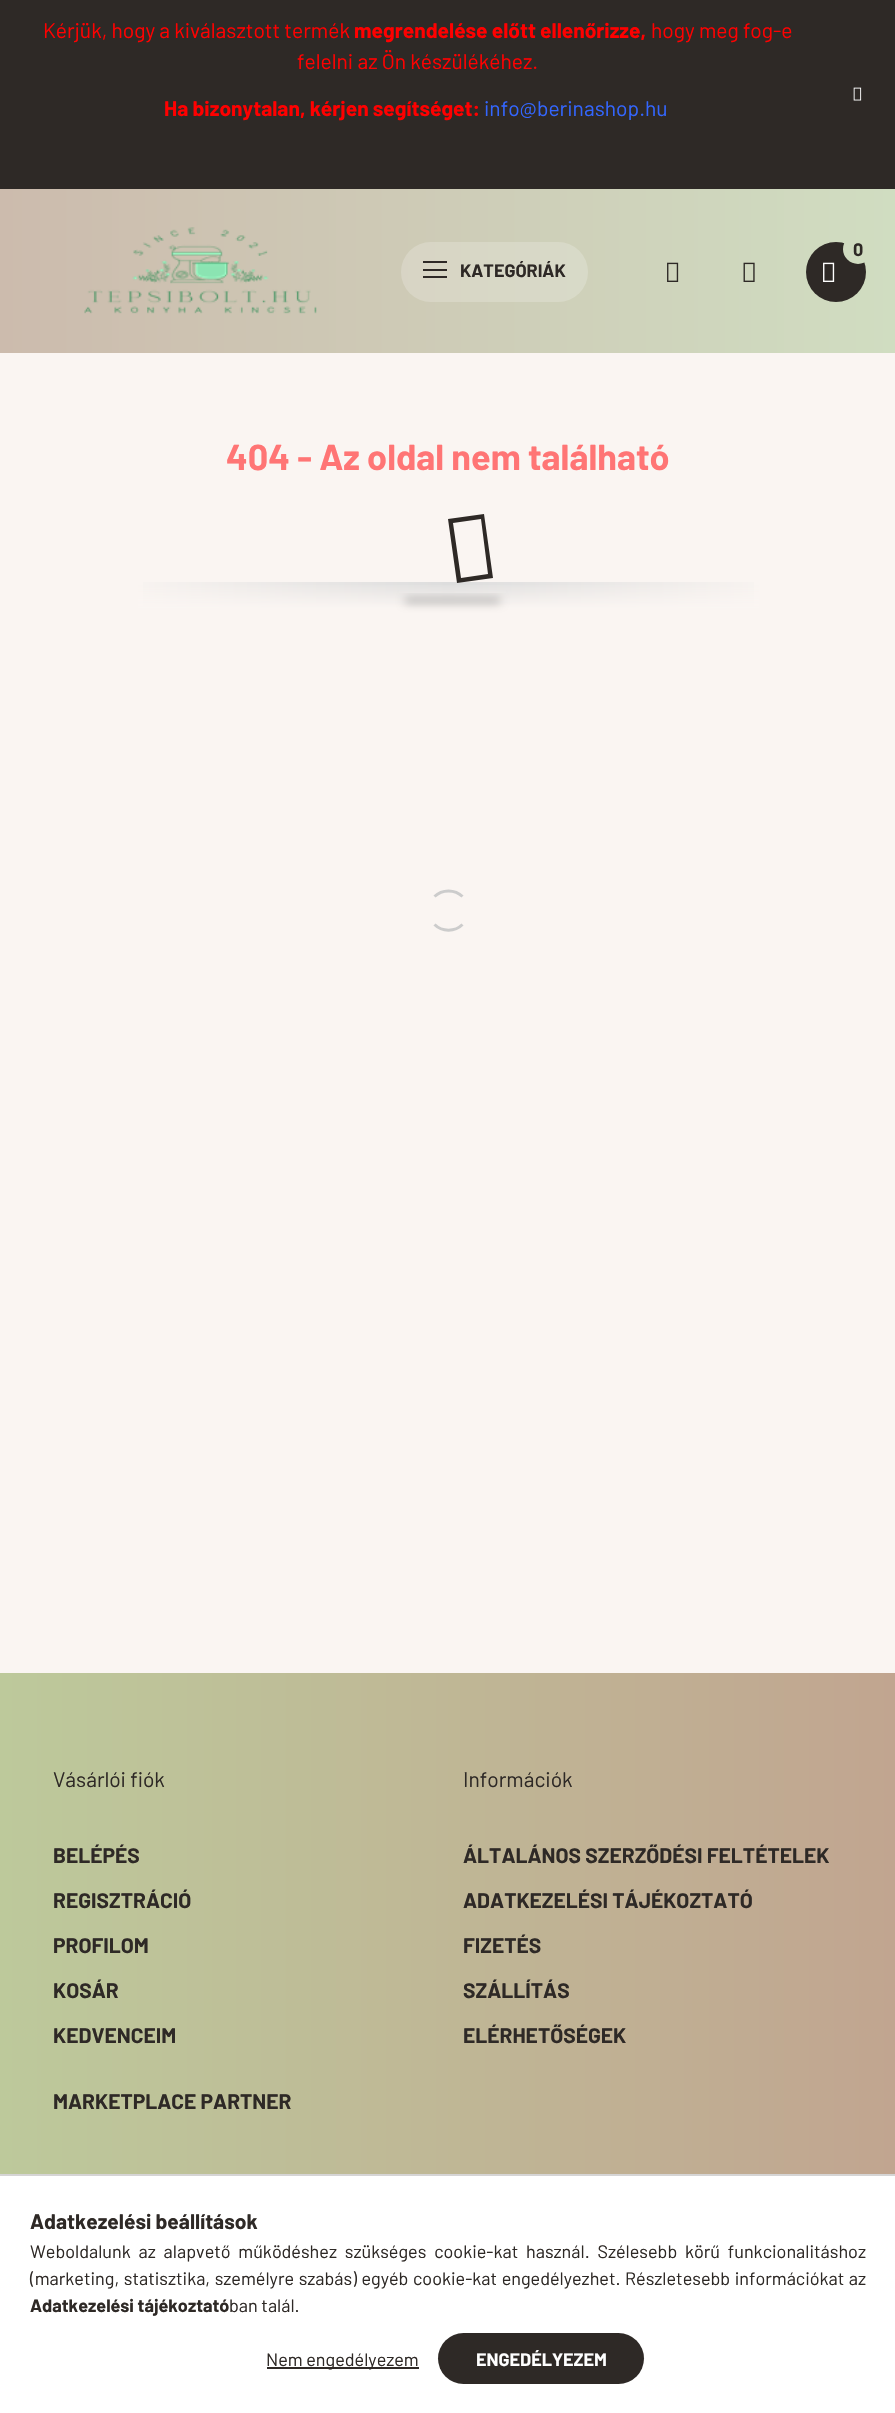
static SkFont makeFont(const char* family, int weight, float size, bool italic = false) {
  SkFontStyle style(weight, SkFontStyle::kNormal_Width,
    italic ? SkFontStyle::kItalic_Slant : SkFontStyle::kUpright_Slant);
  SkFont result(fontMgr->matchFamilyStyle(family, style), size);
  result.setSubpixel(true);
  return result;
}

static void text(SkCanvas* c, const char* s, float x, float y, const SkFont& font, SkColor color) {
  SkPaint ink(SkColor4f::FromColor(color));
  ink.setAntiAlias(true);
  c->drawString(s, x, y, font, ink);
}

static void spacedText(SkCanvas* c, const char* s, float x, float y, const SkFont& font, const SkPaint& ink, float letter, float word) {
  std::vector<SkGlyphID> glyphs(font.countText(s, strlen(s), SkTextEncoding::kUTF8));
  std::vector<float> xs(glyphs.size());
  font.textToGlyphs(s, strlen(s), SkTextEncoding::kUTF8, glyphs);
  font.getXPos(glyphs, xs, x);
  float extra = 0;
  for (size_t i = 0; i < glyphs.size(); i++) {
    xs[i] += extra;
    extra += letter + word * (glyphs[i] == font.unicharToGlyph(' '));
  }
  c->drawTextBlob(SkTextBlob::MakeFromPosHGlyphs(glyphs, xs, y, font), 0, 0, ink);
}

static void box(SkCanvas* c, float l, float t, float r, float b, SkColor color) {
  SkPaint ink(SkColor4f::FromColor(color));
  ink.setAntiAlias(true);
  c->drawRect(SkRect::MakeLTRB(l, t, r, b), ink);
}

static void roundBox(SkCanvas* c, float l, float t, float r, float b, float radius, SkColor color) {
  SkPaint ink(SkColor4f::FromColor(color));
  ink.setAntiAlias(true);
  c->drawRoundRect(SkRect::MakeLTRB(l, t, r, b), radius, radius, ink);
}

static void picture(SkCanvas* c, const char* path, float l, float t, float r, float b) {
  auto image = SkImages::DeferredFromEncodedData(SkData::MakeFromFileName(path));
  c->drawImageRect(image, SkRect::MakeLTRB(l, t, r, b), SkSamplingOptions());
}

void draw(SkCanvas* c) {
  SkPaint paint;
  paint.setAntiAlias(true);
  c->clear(0xfffaf5f2);
  box(c, 0, 0, 895, 189, 0xff2e2926);
  SkFont face1 = makeFont("Barlow", 400, 21);
  text(c, "Kérjük, hogy a kiválasztott termék", 43, 38, face1, 0xffff0000);
  SkFont face2 = makeFont("Barlow", 700, 21);
  text(c, "megrendelése előtt ellenőrizze,", 354, 38, face2, 0xffff0000);
  text(c, "hogy meg fog-e", 651, 38, face1, 0xffff0000);
  text(c, "felelni az Ön készülékéhez.", 297, 69, face1, 0xffff0000);
  picture(c, "img_01.png", 853, 87, 862, 101);
  text(c, "Ha bizonytalan, kérjen segítséget:", 164, 116, face2, 0xffff0000);
  text(c, "info@berinashop.hu", 484, 116, face1, 0xff3366ff);
  {
    const SkColor colors[] = {0xffccbbad, 0xffd0ddc1};
    const float stops[] = {0, 1};
    const SkPoint ends[] = {{0, 1207}, {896, 1207}};
    paint.setShader(SkGradientShader::MakeLinear(ends, colors, stops, 2, SkTileMode::kClamp));
    paint.setAlpha(255);
  }
  c->drawRect(SkRect::MakeLTRB(0, 189, 895, 353), paint);
  paint.setShader(nullptr);
  paint.setColor(0xff2e2926);
  c->drawCircle(836, 272, 30, paint);
  {
    const SkColor colors[] = {0xffccbbad, 0xffd0ddc1};
    const float stops[] = {0, 1};
    const SkPoint ends[] = {{0, 1207}, {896, 1207}};
    paint.setShader(SkGradientShader::MakeLinear(ends, colors, stops, 2, SkTileMode::kClamp));
    paint.setAlpha(255);
  }
  c->drawCircle(858, 249, 15, paint);
  SkFont face3 = makeFont("Barlow", 700, 18);
  text(c, "0", 853, 256, face3, 0xff2e2926);
  picture(c, "img_02.png", 823, 262, 835, 282);
  picture(c, "img_03.png", 667, 262, 679, 282);
  picture(c, "img_04.png", 743, 262, 755, 282);
  picture(c, "img_05.png", 84, 227, 317, 314);
  roundBox(c, 401, 242, 588, 302, 30, 0x33ffffff);
  box(c, 423, 261, 447, 263, 0xff2e2926);
  box(c, 423, 269, 447, 271, 0xff2e2926);
  box(c, 423, 276, 447, 278, 0xff2e2926);
  text(c, "KATEGÓRIÁK", 460, 277, face3, 0xff2e2926);
  SkFont face4 = makeFont("Barlow", 700, 36);
  text(c, "404 - Az oldal nem található", 226, 470, face4, 0xffff7575);
  {
    const SkColor colors[] = {0xfffaf5f2, 0xffdddddd, 0xfffaf5f2};
    const float stops[] = {0.1f, 0.5f, 0.9f};
    const SkPoint ends[] = {{31, 596}, {866, 596}};
    paint.setShader(SkGradientShader::MakeLinear(ends, colors, stops, 3, SkTileMode::kClamp));
    paint.setAlpha(255);
  }
  c->drawRect(SkRect::MakeLTRB(143, 582, 754, 609), paint);
  paint.setShader(nullptr);
  paint.setColor(0xff2e2926);
  c->drawPath(SkPathBuilder().moveTo(484, 514).lineTo(493, 578).lineTo(457, 583).lineTo(448, 519).close().moveTo(481, 519).lineTo(453, 523).lineTo(461, 578).lineTo(488, 574).close().detach(), paint);
  {
    const SkColor colors[] = {0xfffaf5f2, 0x00faf5f2};
    const float stops[] = {0, 1};
    const SkPoint ends[] = {{449, 609}, {449, 582}};
    paint.setShader(SkGradientShader::MakeLinear(ends, colors, stops, 2, SkTileMode::kClamp));
    paint.setAlpha(255);
  }
  c->drawRect(SkRect::MakeLTRB(138, 585, 759, 609), paint);
  c->save();
  c->clipPath(SkPathBuilder(SkPathFillType::kEvenOdd).moveTo(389, 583).lineTo(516, 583).lineTo(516, 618).lineTo(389, 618).close().moveTo(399, 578).lineTo(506, 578).lineTo(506, 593).lineTo(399, 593).close().detach(), true);
  paint.setShader(nullptr);
  paint.setColor(0xff808080);
  paint.setMaskFilter(SkMaskFilter::MakeBlur(kNormal_SkBlurStyle, 5));
  c->drawRect(SkRect::MakeLTRB(405, 599, 500, 602), paint);
  paint.setMaskFilter(nullptr);
  c->restore();
  paint.setStyle(SkPaint::kStroke_Style);
  paint.setStrokeWidth(3);
  paint.setColor(0xffcccccc);
  c->drawPath(SkPathBuilder().moveTo(434.5f, 896.5f).cubicTo(442, 889, 455, 889, 462.5f, 896.5f).moveTo(462.5f, 924.5f).cubicTo(455, 932, 442, 932, 434.5f, 924.5f).detach(), paint);
  paint.setStyle(SkPaint::kFill_Style);
  {
    const SkColor colors[] = {0xffbdc99b, 0xffc1a590};
    const float stops[] = {0, 1};
    const SkPoint ends[] = {{0, 1207}, {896, 1207}};
    paint.setShader(SkGradientShader::MakeLinear(ends, colors, stops, 2, SkTileMode::kClamp));
    paint.setAlpha(255);
  }
  c->drawRect(SkRect::MakeLTRB(0, 1673, 895, 2174), paint);
  text(c, "Vásárlói fiók", 53, 1787, face1, 0xff2e2926);
  text(c, "BELÉPÉS", 53, 1863, face2, 0xff2e2926);
  text(c, "REGISZTRÁCIÓ", 53, 1908, face2, 0xff2e2926);
  text(c, "PROFILOM", 53, 1953, face2, 0xff2e2926);
  text(c, "KOSÁR", 53, 1998, face2, 0xff2e2926);
  text(c, "KEDVENCEIM", 53, 2043, face2, 0xff2e2926);
  text(c, "MARKETPLACE PARTNER", 53, 2109, face2, 0xff2e2926);
  text(c, "Információk", 463, 1787, face1, 0xff2e2926);
  text(c, "ÁLTALÁNOS SZERZŐDÉSI FELTÉTELEK", 463, 1863, face2, 0xff2e2926);
  text(c, "ADATKEZELÉSI TÁJÉKOZTATÓ", 463, 1908, face2, 0xff2e2926);
  text(c, "FIZETÉS", 463, 1953, face2, 0xff2e2926);
  text(c, "SZÁLLÍTÁS", 463, 1998, face2, 0xff2e2926);
  text(c, "ELÉRHETŐSÉGEK", 463, 2043, face2, 0xff2e2926);
  box(c, 0, 2176, 895, 2413, 0xffffffff);
  box(c, 0, 2174, 895, 2176, 0xffd5d4d4);
  text(c, "Adatkezelési beállítások", 30, 2229, face2, 0xff2e2926);
  SkFont face5 = makeFont("Barlow", 400, 18);
  paint.setShader(nullptr);
  paint.setColor(0xff2e2926);
  spacedText(c, "Weboldalunk az alapvető működéshez szükséges cookie-kat használ. Szélesebb körű funkcionalitáshoz", 30, 2258, face5, paint, 0, 4.25f);
  spacedText(c, "(marketing, statisztika, személyre szabás) egyéb cookie-kat engedélyezhet. Részletesebb információkat az", 30, 2285, face5, paint, 0, 1);
  text(c, "Adatkezelési tájékoztató", 30, 2312, face3, 0xff2e2926);
  text(c, "ban talál.", 229, 2312, face5, 0xff2e2926);
  box(c, 267, 2367, 419, 2369, 0xff2e2926);
  text(c, "Nem engedélyezem", 266, 2366, face5, 0xff2e2926);
  {
    const SkColor colors[] = {0xff2e2926, 0xffd58a4d};
    const float stops[] = {0.33f, 0.67f};
    const SkPoint ends[] = {{438, 2358}, {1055, 2358}};
    paint.setShader(SkGradientShader::MakeLinear(ends, colors, stops, 2, SkTileMode::kClamp));
    paint.setAlpha(255);
  }
  c->drawRoundRect(SkRect::MakeLTRB(438, 2333, 644, 2384), 25.5f, 25.5f, paint);
  text(c, "ENGEDÉLYEZEM", 476, 2366, face3, 0xffffffff);
}
